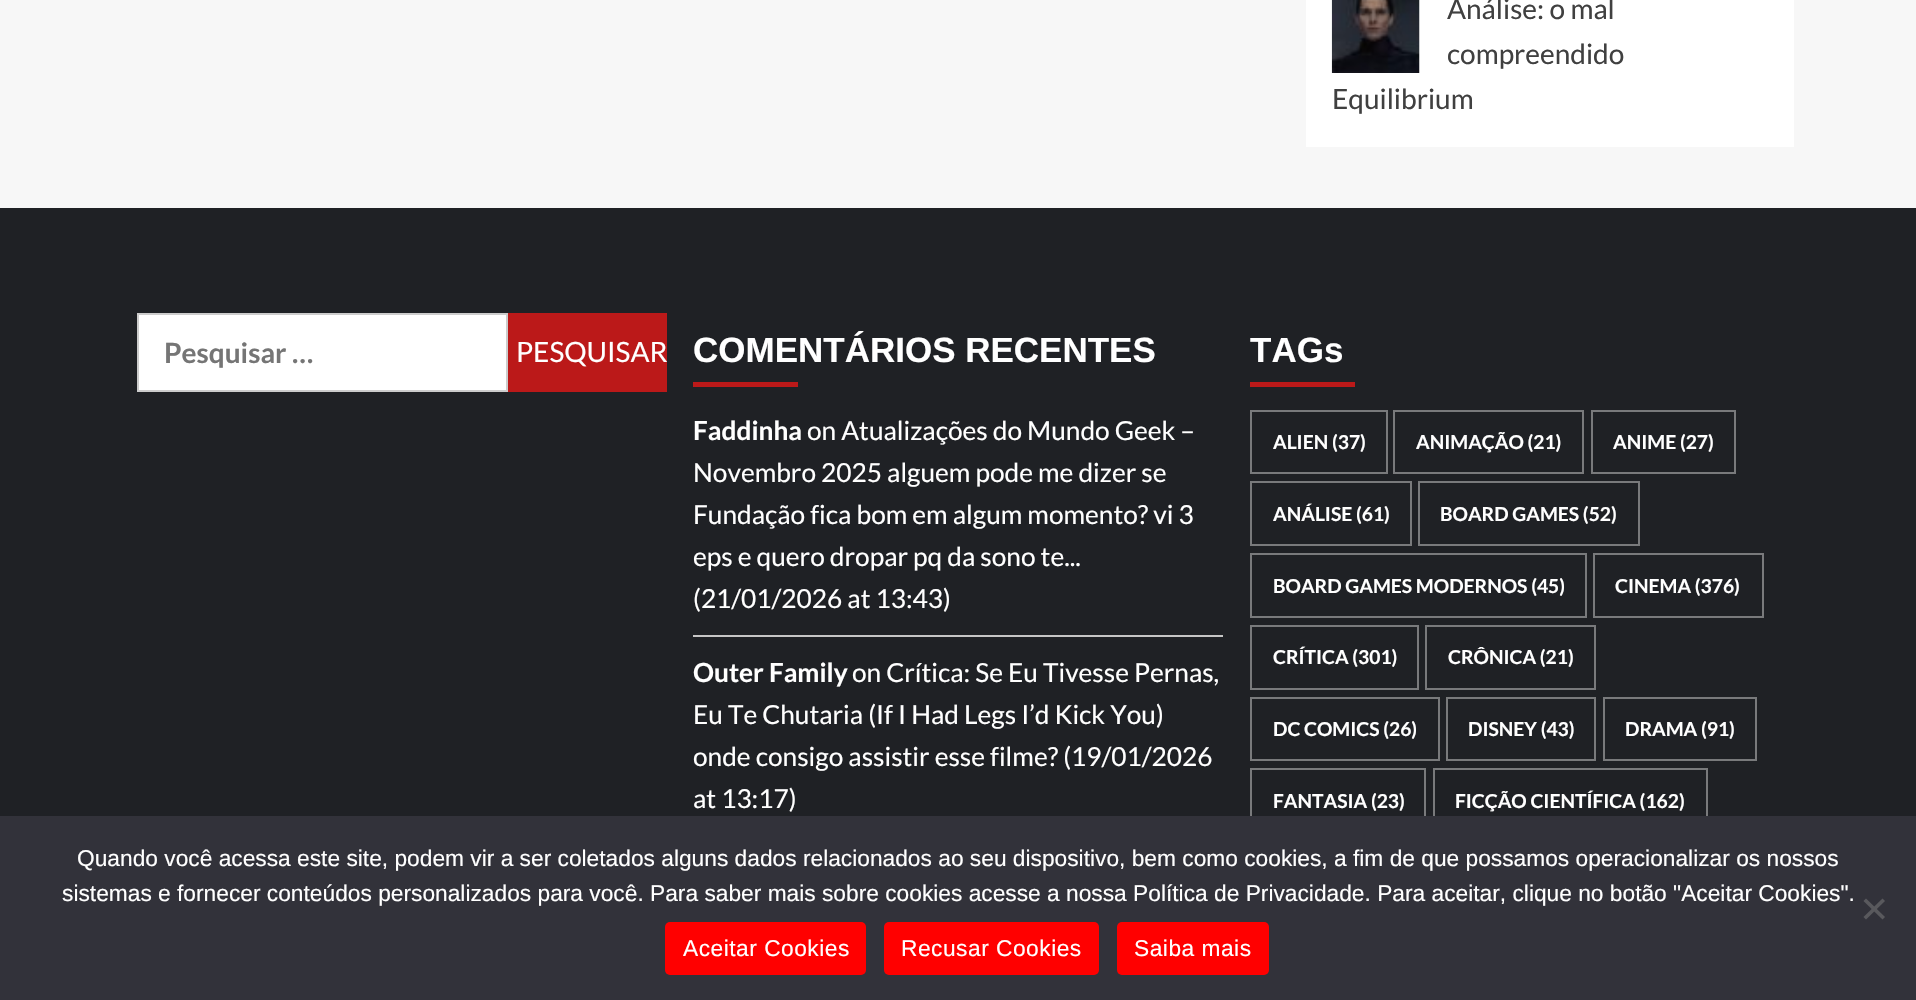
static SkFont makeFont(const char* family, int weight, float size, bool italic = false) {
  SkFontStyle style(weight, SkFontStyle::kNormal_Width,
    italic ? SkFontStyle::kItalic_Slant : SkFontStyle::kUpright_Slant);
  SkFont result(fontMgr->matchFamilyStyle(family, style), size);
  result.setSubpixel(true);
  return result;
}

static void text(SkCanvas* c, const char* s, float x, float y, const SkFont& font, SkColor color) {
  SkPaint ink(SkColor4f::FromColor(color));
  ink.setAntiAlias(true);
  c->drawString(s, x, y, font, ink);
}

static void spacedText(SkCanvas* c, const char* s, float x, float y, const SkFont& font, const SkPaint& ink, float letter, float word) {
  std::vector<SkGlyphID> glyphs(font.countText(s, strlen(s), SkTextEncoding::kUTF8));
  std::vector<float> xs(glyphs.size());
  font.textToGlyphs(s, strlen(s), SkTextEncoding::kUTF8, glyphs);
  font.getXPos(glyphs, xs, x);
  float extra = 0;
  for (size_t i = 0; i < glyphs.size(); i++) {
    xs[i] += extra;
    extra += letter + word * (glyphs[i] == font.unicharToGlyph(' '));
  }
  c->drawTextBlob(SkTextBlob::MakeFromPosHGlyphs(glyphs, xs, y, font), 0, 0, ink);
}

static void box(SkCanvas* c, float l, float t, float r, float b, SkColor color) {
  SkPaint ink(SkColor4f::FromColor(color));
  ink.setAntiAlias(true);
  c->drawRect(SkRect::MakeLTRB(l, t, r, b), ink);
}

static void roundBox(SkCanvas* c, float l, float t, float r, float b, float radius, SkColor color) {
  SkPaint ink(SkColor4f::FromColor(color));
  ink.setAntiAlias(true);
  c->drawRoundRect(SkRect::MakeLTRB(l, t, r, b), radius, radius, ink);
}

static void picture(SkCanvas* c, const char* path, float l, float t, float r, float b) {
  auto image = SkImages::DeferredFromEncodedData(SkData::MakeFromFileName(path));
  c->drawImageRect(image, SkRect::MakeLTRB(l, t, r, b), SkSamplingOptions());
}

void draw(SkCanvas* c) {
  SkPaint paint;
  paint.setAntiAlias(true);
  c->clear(0xfff7f7f7);
  box(c, 1306, 0, 1794, 147, 0xffffffff);
  picture(c, "img_01.png", 1331, 0, 1420, 73);
  SkFont face1 = makeFont("Lato", 400, 28);
  text(c, "Análise: o mal", 1447, 19, face1, 0xff404040);
  text(c, "compreendido", 1447, 64, face1, 0xff404040);
  text(c, "Equilibrium", 1332, 109, face1, 0xff404040);
  box(c, 0, 208, 1916, 816, 0xff1f2125);
  paint.setColor(0xffffffff);
  c->drawRect(SkRect::MakeLTRB(138, 314, 507, 391), paint);
  paint.setStyle(SkPaint::kStroke_Style);
  paint.setStrokeWidth(2);
  paint.setColor(0xffcccccc);
  c->drawRect(SkRect::MakeLTRB(138, 314, 507, 391), paint);
  SkFont face2 = makeFont("Lato", 700, 28);
  text(c, "Pesquisar …", 164, 363, face2, 0xff757575);
  box(c, 508, 313, 667, 392, 0xffbb1919);
  text(c, "PESQUISAR", 516, 362, face1, 0xffffffff);
  SkFont face3 = makeFont("Liberation Sans", 700, 35);
  text(c, "COMENTÁRIOS RECENTES", 693, 362, face3, 0xffffffff);
  box(c, 693, 382, 798, 387, 0xffbb1919);
  box(c, 693, 635, 1223, 637, 0xffc6c6c6);
  SkFont face4 = makeFont("Lato", 700, 26.25f);
  text(c, "Faddinha", 693, 440, face4, 0xffffffff);
  SkFont face5 = makeFont("Lato", 400, 26.25f);
  text(c, "on Atualizações do Mundo Geek –", 807, 440, face5, 0xffffffff);
  text(c, "Novembro 2025 alguem pode me dizer se", 693, 482, face5, 0xffffffff);
  text(c, "Fundação fica bom em algum momento? vi 3", 693, 524, face5, 0xffffffff);
  text(c, "eps e quero dropar pq da sono te...", 693, 566, face5, 0xffffffff);
  text(c, "(21/01/2026 at 13:43)", 693, 608, face5, 0xffffffff);
  text(c, "Outer Family", 693, 682, face4, 0xffffffff);
  text(c, "on Crítica: Se Eu Tivesse Pernas,", 852, 682, face5, 0xffffffff);
  text(c, "Eu Te Chutaria (If I Had Legs I’d Kick You)", 693, 724, face5, 0xffffffff);
  text(c, "onde consigo assistir esse filme? (19/01/2026", 693, 766, face5, 0xffffffff);
  text(c, "at 13:17)", 693, 808, face5, 0xffffffff);
  text(c, "TAGs", 1250, 362, face3, 0xffffffff);
  box(c, 1250, 382, 1355, 387, 0xffbb1919);
  paint.setColor(0xff797a7c);
  c->drawRect(SkRect::MakeLTRB(1251, 411, 1387, 473), paint);
  SkFont face6 = makeFont("Lato", 700, 19.25f);
  text(c, "ALIEN (37)", 1273, 449, face6, 0xffffffff);
  c->drawRect(SkRect::MakeLTRB(1394, 411, 1583, 473), paint);
  text(c, "ANIMAÇÃO (21)", 1416, 449, face6, 0xffffffff);
  c->drawRect(SkRect::MakeLTRB(1592, 411, 1735, 473), paint);
  text(c, "ANIME (27)", 1613, 449, face6, 0xffffffff);
  c->drawRect(SkRect::MakeLTRB(1251, 482, 1411, 545), paint);
  text(c, "ANÁLISE (61)", 1273, 521, face6, 0xffffffff);
  c->drawRect(SkRect::MakeLTRB(1419, 482, 1639, 545), paint);
  text(c, "BOARD GAMES (52)", 1440, 521, face6, 0xffffffff);
  c->drawRect(SkRect::MakeLTRB(1251, 554, 1586, 617), paint);
  text(c, "BOARD GAMES MODERNOS (45)", 1273, 593, face6, 0xffffffff);
  c->drawRect(SkRect::MakeLTRB(1594, 554, 1763, 617), paint);
  text(c, "CINEMA (376)", 1615, 593, face6, 0xffffffff);
  c->drawRect(SkRect::MakeLTRB(1251, 626, 1418, 689), paint);
  text(c, "CRÍTICA (301)", 1273, 664, face6, 0xffffffff);
  c->drawRect(SkRect::MakeLTRB(1426, 626, 1595, 689), paint);
  text(c, "CRÔNICA (21)", 1448, 664, face6, 0xffffffff);
  c->drawRect(SkRect::MakeLTRB(1251, 698, 1439, 760), paint);
  text(c, "DC COMICS (26)", 1273, 736, face6, 0xffffffff);
  c->drawRect(SkRect::MakeLTRB(1447, 698, 1595, 760), paint);
  text(c, "DISNEY (43)", 1468, 736, face6, 0xffffffff);
  c->drawRect(SkRect::MakeLTRB(1604, 698, 1756, 760), paint);
  text(c, "DRAMA (91)", 1625, 736, face6, 0xffffffff);
  c->drawRect(SkRect::MakeLTRB(1251, 769, 1425, 832), paint);
  text(c, "FANTASIA (23)", 1273, 808, face6, 0xffffffff);
  c->drawRect(SkRect::MakeLTRB(1434, 769, 1707, 832), paint);
  text(c, "FICÇÃO CIENTÍFICA (162)", 1455, 808, face6, 0xffffffff);
  box(c, 0, 816, 1916, 1000, 0xff32323a);
  SkFont face7 = makeFont("Liberation Sans", 400, 22.75f);
  text(c, "Quando você acessa este site, podem vir a ser coletados alguns dados relacionados ao seu dispositivo, bem como cookies, a fim de que possamos operacionalizar os nossos", 77, 866, face7, 0xffffffff);
  text(c, "sistemas e fornecer conteúdos personalizados para você. Para saber mais sobre cookies acesse a nossa Política de Privacidade. Para aceitar, clique no botão \"Aceitar Cookies\".", 62, 901, face7, 0xffffffff);
  paint.setStyle(SkPaint::kFill_Style);
  paint.setColor(0xff59595d);
  c->drawPath(SkPathBuilder().moveTo(1882.5f, 898.5f).lineTo(1885, 901).lineTo(1866, 919.5f).lineTo(1863.5f, 917).close().detach(), paint);
  c->drawPath(SkPathBuilder().moveTo(1863.5f, 901).lineTo(1866, 898.5f).lineTo(1885, 917).lineTo(1882.5f, 919.5f).close().detach(), paint);
  roundBox(c, 665, 922, 866, 975, 5, 0xffff0000);
  paint.setColor(0xffffffff);
  spacedText(c, "Aceitar Cookies", 683, 956, face7, paint, 0.5f, 0);
  roundBox(c, 884, 922, 1099, 975, 5, 0xffff0000);
  spacedText(c, "Recusar Cookies", 901, 956, face7, paint, 0.5f, 0);
  roundBox(c, 1117, 922, 1269, 975, 5, 0xffff0000);
  spacedText(c, "Saiba mais", 1134, 956, face7, paint, 0.5f, 0);
}
